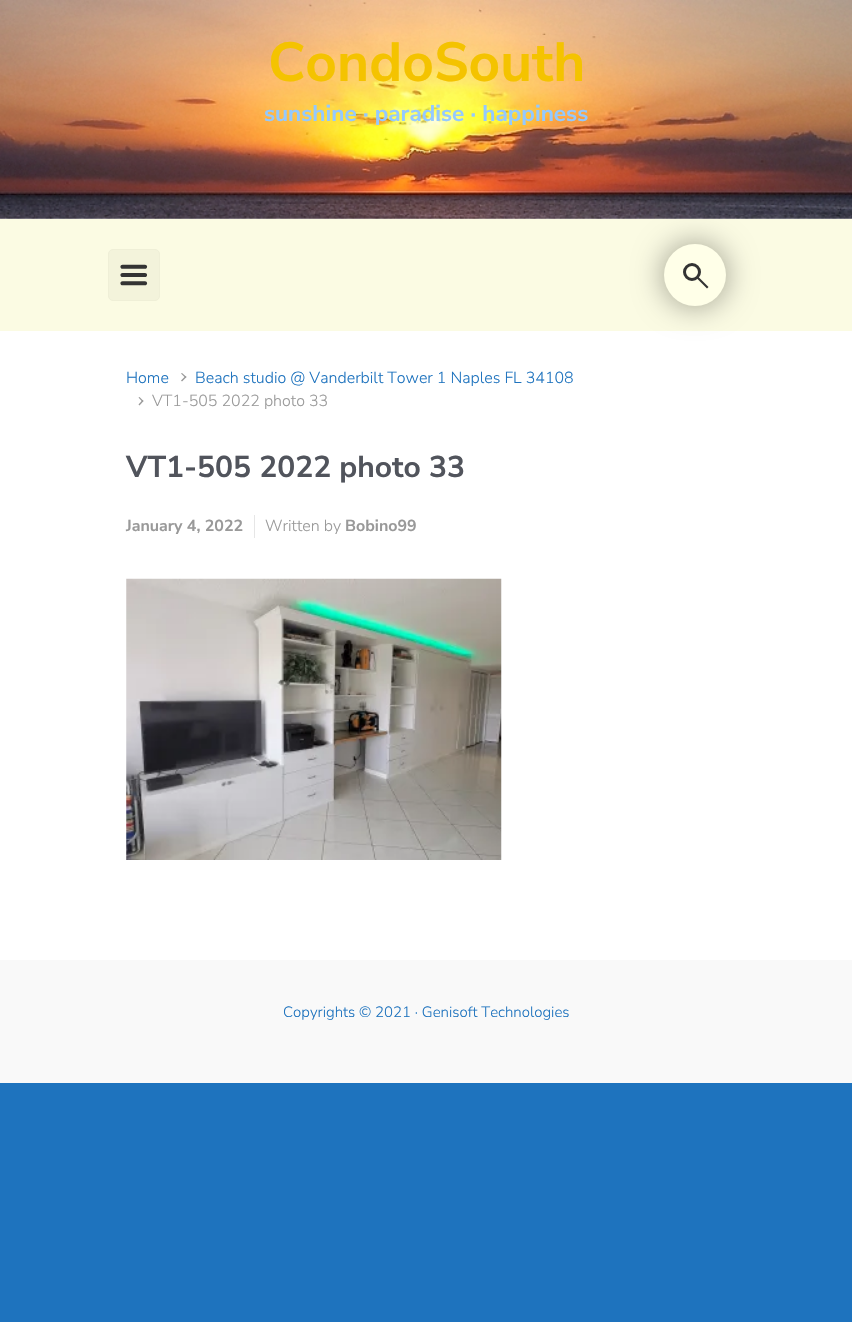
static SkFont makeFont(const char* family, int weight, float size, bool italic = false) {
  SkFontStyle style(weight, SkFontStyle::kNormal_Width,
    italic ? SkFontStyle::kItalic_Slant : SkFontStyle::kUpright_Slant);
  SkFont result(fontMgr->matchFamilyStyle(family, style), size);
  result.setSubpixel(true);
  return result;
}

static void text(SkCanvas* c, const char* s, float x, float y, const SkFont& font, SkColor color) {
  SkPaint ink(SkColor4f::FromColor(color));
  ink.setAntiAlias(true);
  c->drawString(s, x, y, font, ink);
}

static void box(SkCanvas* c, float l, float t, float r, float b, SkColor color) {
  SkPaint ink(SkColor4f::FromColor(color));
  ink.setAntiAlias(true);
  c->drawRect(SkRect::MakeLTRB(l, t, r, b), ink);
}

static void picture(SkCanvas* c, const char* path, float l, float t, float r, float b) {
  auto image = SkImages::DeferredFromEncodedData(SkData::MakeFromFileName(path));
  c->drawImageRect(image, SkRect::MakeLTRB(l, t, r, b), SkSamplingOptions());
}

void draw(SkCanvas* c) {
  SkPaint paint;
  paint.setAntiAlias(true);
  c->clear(0xff1e73be);
  box(c, 0, 218, 852, 1083, 0xfff9f9f9);
  picture(c, "img_01.png", 0, 0, 852, 219);
  SkFont face1 = makeFont("Nunito Sans", 700, 55);
  text(c, "CondoSouth", 268, 81, face1, 0xfff4c300);
  SkFont face2 = makeFont("Nunito Sans", 700, 22.6f);
  text(c, "sunshine · paradise · happiness", 264, 121, face2, 0xff94c9ff);
  box(c, 0, 219, 852, 331, 0xfffbfbe3);
  paint.setColor(0xfff3f3db);
  c->drawRoundRect(SkRect::MakeLTRB(108.5f, 249.5f, 159.5f, 300.5f), 4.5f, 4.5f, paint);
  paint.setStyle(SkPaint::kStroke_Style);
  paint.setStrokeWidth(1);
  paint.setColor(0xffefefd7);
  c->drawRoundRect(SkRect::MakeLTRB(108.5f, 249.5f, 159.5f, 300.5f), 4.5f, 4.5f, paint);
  picture(c, "img_02.png", 120, 264, 148, 286);
  box(c, 0, 331, 852, 960, 0xffffffff);
  paint.setStyle(SkPaint::kFill_Style);
  paint.setColor(0x66000000);
  paint.setMaskFilter(SkMaskFilter::MakeBlur(kNormal_SkBlurStyle, 15.5f));
  c->drawRoundRect(SkRect::MakeLTRB(664, 244, 726, 306), 31, 31, paint);
  paint.setMaskFilter(nullptr);
  paint.setColor(0xffffffe8);
  c->drawCircle(695, 275, 31, paint);
  paint.setColor(0xff333333);
  c->drawPath(SkPathBuilder().moveTo(698, 276.5f).lineTo(708.5f, 287).lineTo(707, 288.5f).lineTo(696.5f, 278).close().detach(), paint);
  paint.setStyle(SkPaint::kStroke_Style);
  paint.setStrokeWidth(3);
  c->drawCircle(692, 272, 7.5f, paint);
  SkFont face3 = makeFont("Nunito Sans", 300, 16);
  text(c, "Home", 126, 383, face3, 0xff1e73be);
  paint.setStyle(SkPaint::kFill_Style);
  paint.setColor(0xff999999);
  c->drawPath(SkPathBuilder().moveTo(181, 373.5f).lineTo(182, 373).lineTo(186.5f, 377).lineTo(185.5f, 378).close().detach(), paint);
  c->drawPath(SkPathBuilder().moveTo(181, 380.5f).lineTo(185.5f, 376).lineTo(186.5f, 377).lineTo(182, 381.5f).close().moveTo(138.5f, 397.5f).lineTo(139.5f, 397).lineTo(143.5f, 401).lineTo(142.5f, 402).close().detach(), paint);
  text(c, "Beach studio @ Vanderbilt Tower 1 Naples FL 34108", 195, 383, face3, 0xff1e73be);
  c->drawPath(SkPathBuilder().moveTo(138.5f, 404.5f).lineTo(142.5f, 400).lineTo(143.5f, 401).lineTo(139.5f, 405.5f).close().detach(), paint);
  text(c, "VT1-505 2022 photo 33", 152, 406, face3, 0xff999999);
  SkFont face4 = makeFont("Nunito Sans", 700, 30);
  text(c, "VT1-505 2022 photo 33", 126, 477, face4, 0xff51545c);
  SkFont face5 = makeFont("Nunito Sans", 700, 16);
  text(c, "January 4, 2022", 126, 531, face5, 0xff999999);
  box(c, 254, 515, 255, 538, 0xffe6e6e6);
  text(c, "Written by", 265, 531, face3, 0xff999999);
  text(c, "Bobino99", 345, 531, face5, 0xff999999);
  picture(c, "img_03.png", 126, 578, 502, 860);
  SkFont face6 = makeFont("Nunito Sans", 300, 15);
  text(c, "Copyrights © 2021 · Genisoft Technologies", 283, 1017, face6, 0xff1e73be);
}
